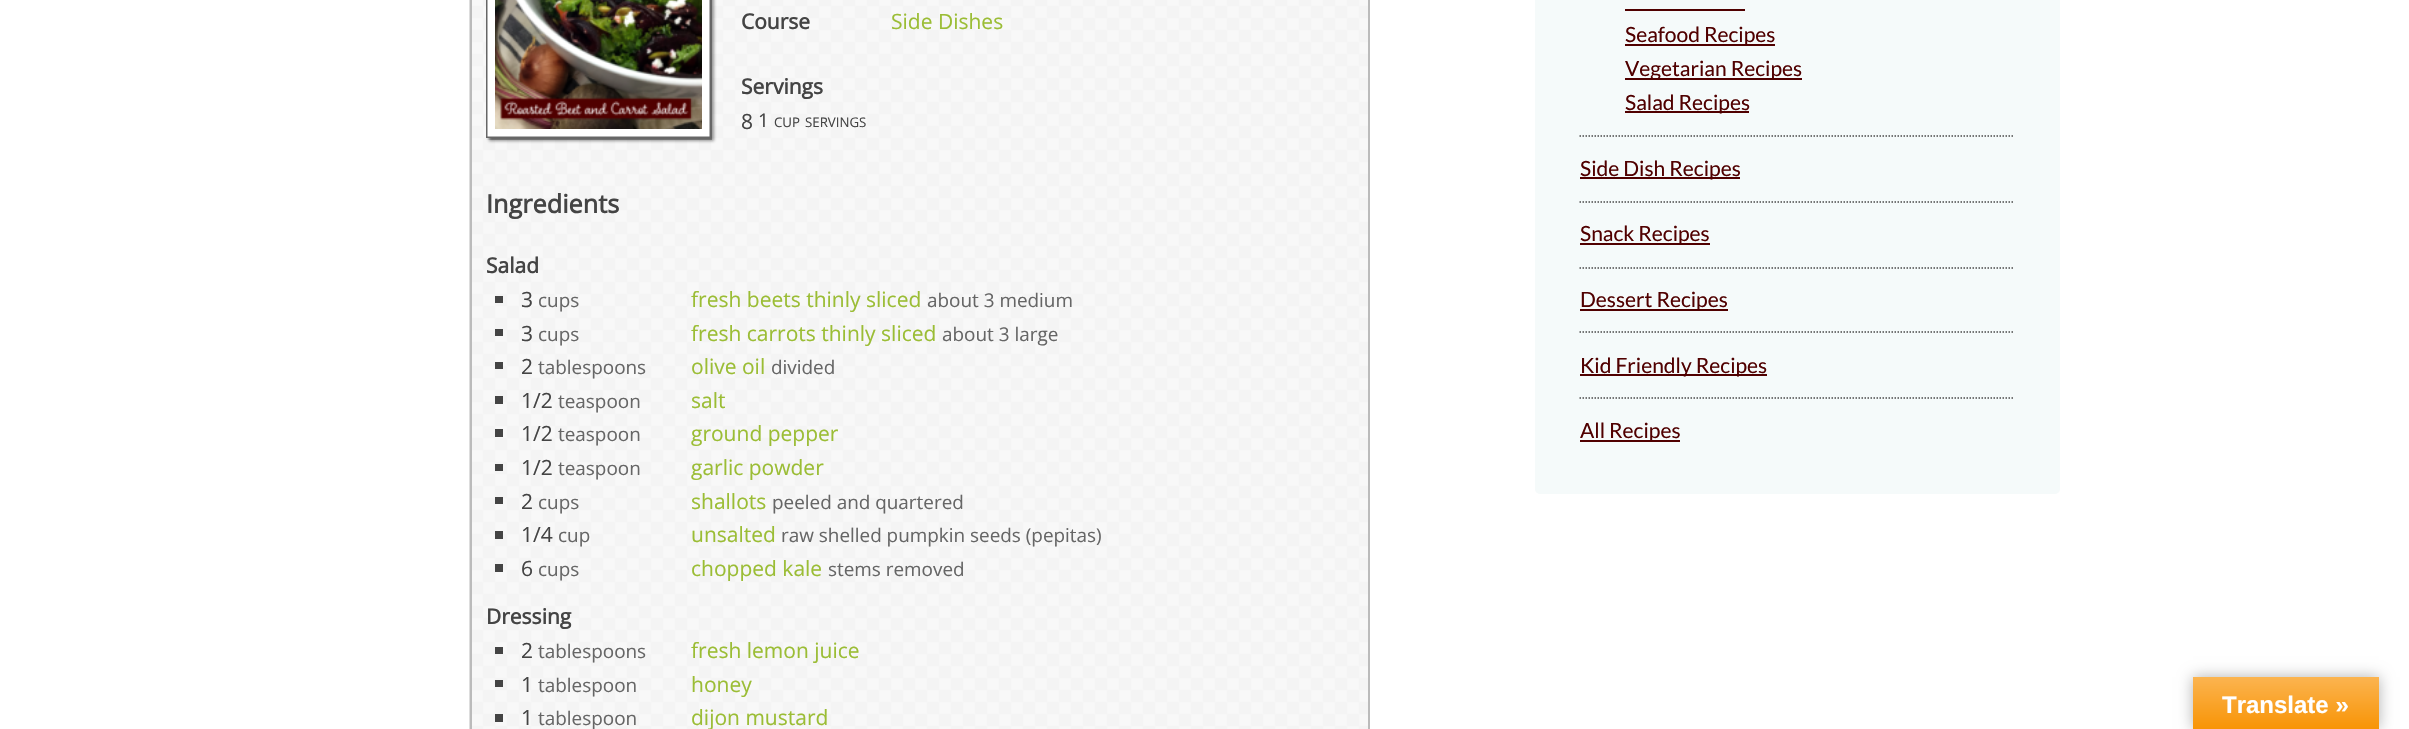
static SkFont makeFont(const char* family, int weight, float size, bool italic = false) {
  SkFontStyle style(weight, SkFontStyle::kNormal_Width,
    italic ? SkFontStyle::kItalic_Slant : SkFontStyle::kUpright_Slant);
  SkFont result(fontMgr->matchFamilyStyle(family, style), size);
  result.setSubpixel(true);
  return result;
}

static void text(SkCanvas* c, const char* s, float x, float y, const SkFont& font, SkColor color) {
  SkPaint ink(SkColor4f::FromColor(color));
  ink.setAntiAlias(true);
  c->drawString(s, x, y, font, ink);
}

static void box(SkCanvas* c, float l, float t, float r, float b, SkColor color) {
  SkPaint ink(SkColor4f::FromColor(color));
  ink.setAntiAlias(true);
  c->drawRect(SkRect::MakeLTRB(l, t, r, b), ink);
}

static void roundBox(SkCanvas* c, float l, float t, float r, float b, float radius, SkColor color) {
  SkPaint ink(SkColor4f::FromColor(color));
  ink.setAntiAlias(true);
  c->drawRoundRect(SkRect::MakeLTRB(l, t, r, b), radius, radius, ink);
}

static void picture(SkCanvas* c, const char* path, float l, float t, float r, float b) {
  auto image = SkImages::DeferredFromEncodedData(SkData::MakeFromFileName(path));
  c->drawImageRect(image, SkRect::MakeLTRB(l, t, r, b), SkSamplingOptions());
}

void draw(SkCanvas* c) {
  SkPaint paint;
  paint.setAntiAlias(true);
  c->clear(0xffffffff);
  picture(c, "img_01.png", 469, 0, 1368, 729);
  paint.setStyle(SkPaint::kStroke_Style);
  paint.setStrokeWidth(2);
  paint.setColor(0xffbbbbbb);
  c->drawRect(SkRect::MakeLTRB(471, -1, 1369, 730), paint);
  paint.setStyle(SkPaint::kFill_Style);
  paint.setColor(0x80323232);
  paint.setMaskFilter(SkMaskFilter::MakeBlur(kNormal_SkBlurStyle, 1.5f));
  c->drawRect(SkRect::MakeLTRB(489, -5, 714, 141), paint);
  paint.setMaskFilter(nullptr);
  picture(c, "img_02.png", 486, 0, 712, 140);
  SkFont face1 = makeFont("Open Sans", 700, 21);
  text(c, "Course", 741, 29, face1, 0xff444444);
  SkFont face2 = makeFont("Open Sans", 400, 21);
  text(c, "Side Dishes", 891, 29, face2, 0xff9bbd35);
  text(c, "Servings", 741, 94, face1, 0xff444444);
  text(c, "8", 741, 129, face2, 0xff444444);
  SkFont face3 = makeFont("Open Sans", 400, 18.9f);
  text(c, "1", 758, 127, face3, 0xff444444);
  SkFont face4 = makeFont("Open Sans", 400, 13.25f);
  text(c, "CUP", 774, 127, face4, 0xff444444);
  text(c, "SERVINGS", 805, 127, face4, 0xff444444);
  SkFont face5 = makeFont("Open Sans", 700, 25.25f);
  text(c, "Ingredients", 486, 213, face5, 0xff444444);
  text(c, "Salad", 486, 273, face1, 0xff444444);
  box(c, 495, 296, 503, 303, 0xff444444);
  text(c, "3", 521, 307, face2, 0xff444444);
  text(c, "cups", 538, 307, face3, 0xff666666);
  text(c, "fresh beets thinly sliced", 691, 307, face2, 0xff9bbd35);
  text(c, "about 3 medium", 927, 307, face3, 0xff666666);
  box(c, 495, 329, 503, 336, 0xff444444);
  text(c, "3", 521, 341, face2, 0xff444444);
  text(c, "cups", 538, 341, face3, 0xff666666);
  text(c, "fresh carrots thinly sliced", 691, 341, face2, 0xff9bbd35);
  text(c, "about 3 large", 942, 341, face3, 0xff666666);
  box(c, 495, 362, 503, 369, 0xff444444);
  text(c, "2", 521, 374, face2, 0xff444444);
  text(c, "tablespoons", 538, 374, face3, 0xff666666);
  text(c, "olive oil", 691, 374, face2, 0xff9bbd35);
  text(c, "divided", 771, 374, face3, 0xff666666);
  box(c, 495, 396, 503, 404, 0xff444444);
  text(c, "1/2", 521, 408, face2, 0xff444444);
  text(c, "teaspoon", 558, 408, face3, 0xff666666);
  text(c, "salt", 691, 408, face2, 0xff9bbd35);
  box(c, 495, 429, 503, 437, 0xff444444);
  text(c, "1/2", 521, 441, face2, 0xff444444);
  text(c, "teaspoon", 558, 441, face3, 0xff666666);
  text(c, "ground pepper", 691, 441, face2, 0xff9bbd35);
  box(c, 495, 464, 503, 471, 0xff444444);
  text(c, "1/2", 521, 475, face2, 0xff444444);
  text(c, "teaspoon", 558, 475, face3, 0xff666666);
  text(c, "garlic powder", 691, 475, face2, 0xff9bbd35);
  box(c, 495, 497, 503, 504, 0xff444444);
  text(c, "2", 521, 509, face2, 0xff444444);
  text(c, "cups", 538, 509, face3, 0xff666666);
  text(c, "shallots", 691, 509, face2, 0xff9bbd35);
  text(c, "peeled and quartered", 772, 509, face3, 0xff666666);
  box(c, 495, 531, 503, 539, 0xff444444);
  text(c, "1/4", 521, 542, face2, 0xff444444);
  text(c, "cup", 558, 542, face3, 0xff666666);
  text(c, "unsalted", 691, 542, face2, 0xff9bbd35);
  text(c, "raw shelled pumpkin seeds (pepitas)", 781, 542, face3, 0xff666666);
  box(c, 495, 564, 503, 572, 0xff444444);
  text(c, "6", 521, 576, face2, 0xff444444);
  text(c, "cups", 538, 576, face3, 0xff666666);
  text(c, "chopped kale", 691, 576, face2, 0xff9bbd35);
  text(c, "stems removed", 828, 576, face3, 0xff666666);
  text(c, "Dressing", 486, 624, face1, 0xff444444);
  box(c, 495, 647, 503, 654, 0xff444444);
  text(c, "2", 521, 658, face2, 0xff444444);
  text(c, "tablespoons", 538, 658, face3, 0xff666666);
  text(c, "fresh lemon juice", 691, 658, face2, 0xff9bbd35);
  box(c, 495, 680, 503, 687, 0xff444444);
  text(c, "1", 521, 692, face2, 0xff444444);
  text(c, "tablespoon", 538, 692, face3, 0xff666666);
  text(c, "honey", 691, 692, face2, 0xff9bbd35);
  box(c, 495, 714, 503, 722, 0xff444444);
  text(c, "1", 521, 725, face2, 0xff444444);
  text(c, "tablespoon", 538, 725, face3, 0xff666666);
  text(c, "dijon mustard", 691, 725, face2, 0xff9bbd35);
  roundBox(c, 1535, -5, 2060, 494, 5, 0xfff5fafa);
  paint.setStyle(SkPaint::kStroke_Style);
  paint.setStrokeWidth(1.5f);
  paint.setColor(0xff494949);
  paint.setPathEffect(SkDashPathEffect::Make({{1.5f, 1.5f}}, 0));
  c->drawPath(SkPathBuilder().moveTo(1579.5f, 136).lineTo(2014.5f, 136).detach(), paint);
  paint.setPathEffect(nullptr);
  box(c, 1625, 9, 1745, 11, 0xff500000);
  box(c, 1625, 44, 1775, 46, 0xff500000);
  SkFont face6 = makeFont("Lato", 400, 21);
  text(c, "Seafood Recipes", 1625, 42, face6, 0xff500000);
  box(c, 1625, 78, 1802, 80, 0xff500000);
  text(c, "Vegetarian Recipes", 1625, 76, face6, 0xff500000);
  box(c, 1625, 111, 1749, 113, 0xff500000);
  text(c, "Salad Recipes", 1625, 110, face6, 0xff500000);
  paint.setPathEffect(SkDashPathEffect::Make({{1.5f, 1.5f}}, 0));
  c->drawPath(SkPathBuilder().moveTo(1579.5f, 202).lineTo(2014.5f, 202).detach(), paint);
  paint.setPathEffect(nullptr);
  box(c, 1580, 177, 1740, 179, 0xff500000);
  text(c, "Side Dish Recipes", 1580, 176, face6, 0xff500000);
  paint.setPathEffect(SkDashPathEffect::Make({{1.5f, 1.5f}}, 0));
  c->drawPath(SkPathBuilder().moveTo(1579.5f, 268).lineTo(2014.5f, 268).detach(), paint);
  paint.setPathEffect(nullptr);
  box(c, 1580, 243, 1710, 245, 0xff500000);
  text(c, "Snack Recipes", 1580, 241, face6, 0xff500000);
  paint.setPathEffect(SkDashPathEffect::Make({{1.5f, 1.5f}}, 0));
  c->drawPath(SkPathBuilder().moveTo(1579.5f, 332).lineTo(2014.5f, 332).detach(), paint);
  paint.setPathEffect(nullptr);
  box(c, 1580, 309, 1728, 311, 0xff500000);
  text(c, "Dessert Recipes", 1580, 307, face6, 0xff500000);
  paint.setPathEffect(SkDashPathEffect::Make({{1.5f, 1.5f}}, 0));
  c->drawPath(SkPathBuilder().moveTo(1579.5f, 398).lineTo(2014.5f, 398).detach(), paint);
  paint.setPathEffect(nullptr);
  box(c, 1580, 374, 1767, 376, 0xff500000);
  text(c, "Kid Friendly Recipes", 1580, 373, face6, 0xff500000);
  box(c, 1580, 440, 1680, 442, 0xff500000);
  text(c, "All Recipes", 1580, 438, face6, 0xff500000);
  paint.setStyle(SkPaint::kFill_Style);
  paint.setColor(0x4d000000);
  paint.setMaskFilter(SkMaskFilter::MakeBlur(kNormal_SkBlurStyle, 7));
  c->drawRect(SkRect::MakeLTRB(2193, 677, 2379, 729), paint);
  paint.setMaskFilter(nullptr);
  {
    const SkColor colors[] = {0xfffbb450, 0xfff89406};
    const float stops[] = {0, 1};
    const SkPoint ends[] = {{2286, 677}, {2286, 729}};
    paint.setShader(SkGradientShader::MakeLinear(ends, colors, stops, 2, SkTileMode::kClamp));
    paint.setAlpha(255);
  }
  c->drawRect(SkRect::MakeLTRB(2193, 677, 2379, 729), paint);
  SkFont face7 = makeFont("Liberation Sans", 700, 24);
  text(c, "Translate »", 2222, 713, face7, 0xffffffff);
}
